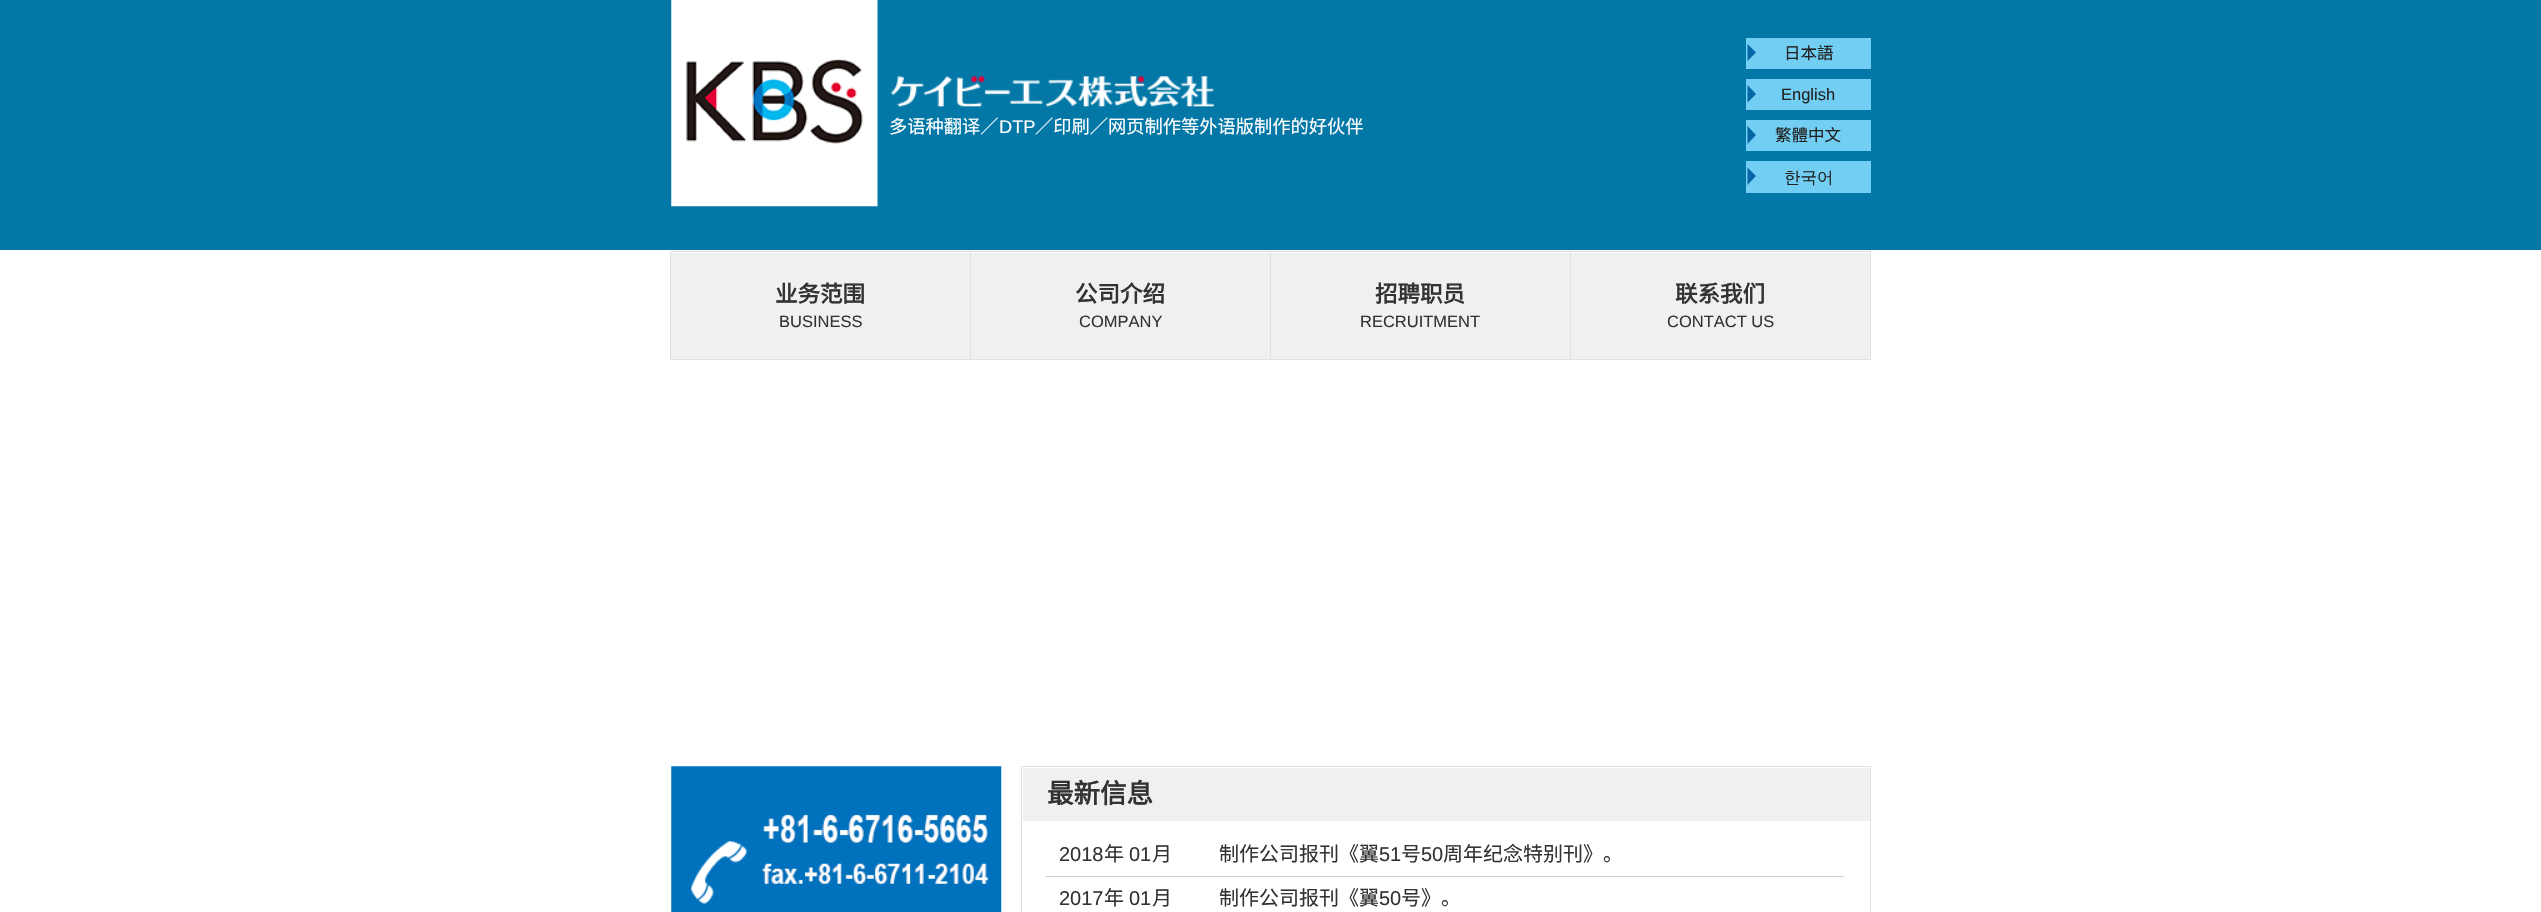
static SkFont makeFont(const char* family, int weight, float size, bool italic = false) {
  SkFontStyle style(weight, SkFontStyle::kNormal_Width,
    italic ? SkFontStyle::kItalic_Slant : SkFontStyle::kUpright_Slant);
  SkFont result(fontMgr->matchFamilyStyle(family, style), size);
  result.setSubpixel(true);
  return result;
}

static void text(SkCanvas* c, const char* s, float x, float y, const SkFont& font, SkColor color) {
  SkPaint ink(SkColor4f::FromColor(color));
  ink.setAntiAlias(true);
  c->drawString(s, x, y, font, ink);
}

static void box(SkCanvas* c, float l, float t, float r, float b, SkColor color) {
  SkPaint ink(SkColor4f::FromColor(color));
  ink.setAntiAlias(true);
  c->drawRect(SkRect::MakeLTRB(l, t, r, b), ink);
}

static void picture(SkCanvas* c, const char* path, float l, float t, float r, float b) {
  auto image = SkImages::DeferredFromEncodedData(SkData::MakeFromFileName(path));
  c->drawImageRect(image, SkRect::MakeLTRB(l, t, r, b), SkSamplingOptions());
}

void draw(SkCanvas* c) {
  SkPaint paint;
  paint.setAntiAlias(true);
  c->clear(0xffffffff);
  box(c, 0, 0, 2541, 250, 0xff0378a6);
  picture(c, "img_01.png", 671, 0, 878, 207);
  picture(c, "img_02.png", 891, 76, 1214, 107);
  box(c, 1746, 38, 1871, 69, 0xff72cef2);
  paint.setColor(0xff0367a6);
  c->drawPath(SkPathBuilder().moveTo(1747.5f, 61).lineTo(1747.5f, 44).lineTo(1756, 52.5f).close().detach(), paint);
  SkFont face1 = makeFont("Noto Sans CJK SC", 400, 16.5f);
  text(c, "日本語", 1784, 59, face1, 0xff222222);
  box(c, 1746, 79, 1871, 110, 0xff72cef2);
  c->drawPath(SkPathBuilder().moveTo(1747.5f, 102.5f).lineTo(1747.5f, 85).lineTo(1756, 94).close().detach(), paint);
  SkFont face2 = makeFont("Liberation Sans", 400, 16.5f);
  text(c, "English", 1781, 100, face2, 0xff222222);
  box(c, 1746, 120, 1871, 151, 0xff72cef2);
  c->drawPath(SkPathBuilder().moveTo(1747.5f, 144).lineTo(1747.5f, 126).lineTo(1756, 135).close().detach(), paint);
  text(c, "繁體中文", 1775, 141, face1, 0xff222222);
  box(c, 1746, 161, 1871, 193, 0xff72cef2);
  c->drawPath(SkPathBuilder().moveTo(1747.5f, 185).lineTo(1747.5f, 167.5f).lineTo(1756, 176).close().detach(), paint);
  SkFont face3 = makeFont("WenQuanYi Zen Hei", 500, 16.5f);
  text(c, "한국어", 1784, 183, face3, 0xff222222);
  SkFont face4 = makeFont("Noto Sans CJK SC", 400, 18.25f);
  text(c, "多语种翻译／", 889, 133, face4, 0xffffffff);
  SkFont face5 = makeFont("Liberation Sans", 400, 18.25f);
  text(c, "DTP", 999, 133, face5, 0xffffffff);
  text(c, "／印刷／网页制作等外语版制作的好伙伴", 1035, 133, face4, 0xffffffff);
  paint.setStyle(SkPaint::kStroke_Style);
  paint.setStrokeWidth(1);
  paint.setColor(0xffe0e0e0);
  c->drawRect(SkRect::MakeLTRB(670.5f, 251.5f, 970.5f, 359.5f), paint);
  box(c, 671, 253, 970, 359, 0xfff0f0f0);
  SkFont face6 = makeFont("Noto Sans CJK SC", 700, 22.5f);
  text(c, "业务范围", 775, 302, face6, 0xff333333);
  text(c, "BUSINESS", 779, 327, face2, 0xff333333);
  c->drawRect(SkRect::MakeLTRB(970.5f, 251.5f, 1270.5f, 359.5f), paint);
  box(c, 971, 253, 1270, 359, 0xfff0f0f0);
  text(c, "公司介绍", 1075, 302, face6, 0xff333333);
  text(c, "COMPANY", 1079, 327, face2, 0xff333333);
  c->drawRect(SkRect::MakeLTRB(1270.5f, 251.5f, 1570.5f, 359.5f), paint);
  box(c, 1271, 253, 1570, 359, 0xfff0f0f0);
  text(c, "招聘职员", 1375, 302, face6, 0xff333333);
  text(c, "RECRUITMENT", 1360, 327, face2, 0xff333333);
  c->drawRect(SkRect::MakeLTRB(1570.5f, 251.5f, 1870.5f, 359.5f), paint);
  box(c, 1571, 253, 1870, 359, 0xfff0f0f0);
  text(c, "联系我们", 1675, 302, face6, 0xff333333);
  text(c, "CONTACT US", 1667, 327, face2, 0xff333333);
  picture(c, "img_03.png", 671, 766, 1002, 912);
  c->drawRect(SkRect::MakeLTRB(1021.5f, 766.5f, 1870.5f, 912.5f), paint);
  box(c, 1023, 768, 1870, 821, 0xfff0f0f0);
  SkFont face7 = makeFont("Noto Sans CJK SC", 700, 26.5f);
  text(c, "最新信息", 1047, 803, face7, 0xff333333);
  SkFont face8 = makeFont("Liberation Sans", 400, 20);
  text(c, "2018", 1059, 861, face8, 0xff333333);
  SkFont face9 = makeFont("Noto Sans CJK SC", 400, 20);
  text(c, "年", 1104, 861, face9, 0xff333333);
  text(c, "01", 1129, 861, face8, 0xff333333);
  text(c, "月", 1152, 861, face9, 0xff333333);
  box(c, 1046, 876, 1844, 877, 0xffcccccc);
  text(c, "制作公司报刊《翼", 1219, 861, face9, 0xff333333);
  text(c, "51", 1379, 861, face8, 0xff333333);
  text(c, "号", 1401, 861, face9, 0xff333333);
  text(c, "50", 1421, 861, face8, 0xff333333);
  text(c, "周年纪念特别刊》。", 1443, 861, face9, 0xff333333);
  text(c, "2017", 1059, 905, face8, 0xff333333);
  text(c, "年", 1104, 905, face9, 0xff333333);
  text(c, "01", 1129, 905, face8, 0xff333333);
  text(c, "月", 1152, 905, face9, 0xff333333);
  text(c, "制作公司报刊《翼", 1219, 905, face9, 0xff333333);
  text(c, "50", 1379, 905, face8, 0xff333333);
  text(c, "号》。", 1401, 905, face9, 0xff333333);
}
